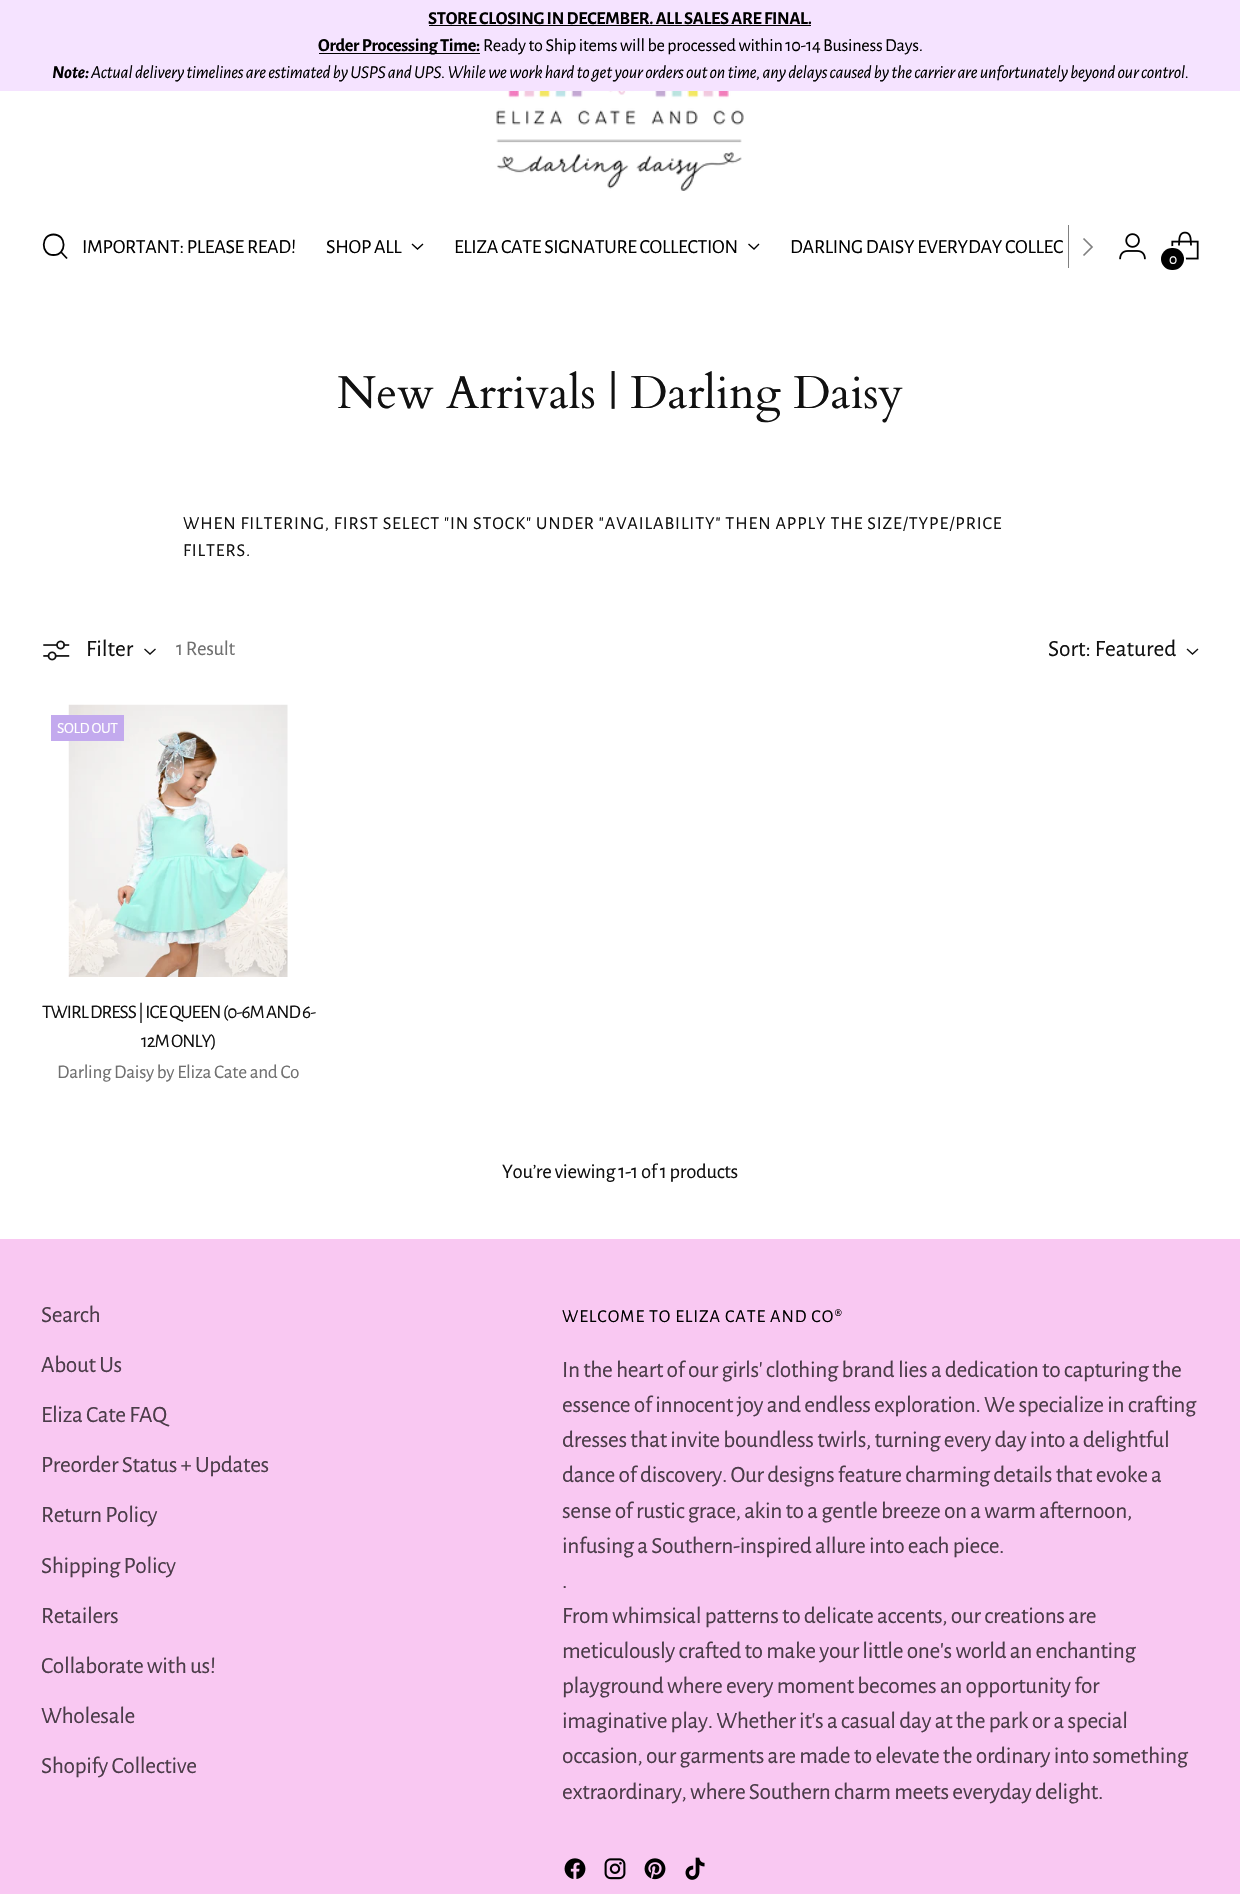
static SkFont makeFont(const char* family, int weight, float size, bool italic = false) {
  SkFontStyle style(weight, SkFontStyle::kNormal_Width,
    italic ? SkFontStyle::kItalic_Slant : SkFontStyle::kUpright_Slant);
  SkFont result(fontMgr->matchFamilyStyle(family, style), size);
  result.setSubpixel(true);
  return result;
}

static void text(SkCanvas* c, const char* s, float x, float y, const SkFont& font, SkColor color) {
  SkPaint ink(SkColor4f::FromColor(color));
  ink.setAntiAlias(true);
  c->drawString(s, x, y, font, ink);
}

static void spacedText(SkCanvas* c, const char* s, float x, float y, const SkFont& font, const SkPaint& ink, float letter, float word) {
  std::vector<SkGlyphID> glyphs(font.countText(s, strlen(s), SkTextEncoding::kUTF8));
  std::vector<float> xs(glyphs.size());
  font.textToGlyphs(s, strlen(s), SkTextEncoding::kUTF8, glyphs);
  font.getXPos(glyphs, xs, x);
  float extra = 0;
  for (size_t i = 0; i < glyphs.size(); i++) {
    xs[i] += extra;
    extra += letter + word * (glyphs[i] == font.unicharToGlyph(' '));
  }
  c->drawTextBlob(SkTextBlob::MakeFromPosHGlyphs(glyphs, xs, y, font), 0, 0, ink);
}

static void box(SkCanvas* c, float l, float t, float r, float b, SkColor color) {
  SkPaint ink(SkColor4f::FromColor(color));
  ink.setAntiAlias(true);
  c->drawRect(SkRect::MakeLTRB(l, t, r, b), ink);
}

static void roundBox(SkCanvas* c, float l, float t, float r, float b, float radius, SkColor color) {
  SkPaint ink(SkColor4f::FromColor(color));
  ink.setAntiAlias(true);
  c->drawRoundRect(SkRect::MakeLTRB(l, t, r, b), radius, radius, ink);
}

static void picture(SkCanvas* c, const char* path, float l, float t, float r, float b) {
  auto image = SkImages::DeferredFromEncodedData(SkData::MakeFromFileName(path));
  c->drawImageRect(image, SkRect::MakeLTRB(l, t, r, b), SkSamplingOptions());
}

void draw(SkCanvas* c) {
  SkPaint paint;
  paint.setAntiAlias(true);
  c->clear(0xffffffff);
  box(c, 0, 0, 1240, 91, 0xfff5e3ff);
  SkFont face1 = makeFont("Alegreya Sans", 700, 18.2f);
  paint.setColor(0xff000000);
  spacedText(c, "STORE CLOSING IN DECEMBER. ALL SALES ARE FINAL.", 428, 24, face1, paint, -0.27f, 0);
  box(c, 429, 25, 811, 26, 0xff000000);
  box(c, 319, 53, 480, 54, 0xff000000);
  spacedText(c, "Order Processing Time:", 318, 51, face1, paint, -0.27f, 0);
  SkFont face2 = makeFont("Alegreya Sans", 400, 18.2f);
  spacedText(c, "Ready to Ship items will be processed within 10-14 Business Days.", 483, 51, face2, paint, -0.27f, 0);
  SkFont face3 = makeFont("Alegreya Sans", 700, 18.2f, true);
  spacedText(c, "Note:", 52, 78, face3, paint, -0.27f, 0);
  SkFont face4 = makeFont("Alegreya Sans", 400, 18.2f, true);
  spacedText(c, "Actual delivery timelines are estimated by USPS and UPS. While we work hard to get your orders out on time, any delays caused by the carrier are unfortunately beyond our control.", 91, 78, face4, paint, -0.27f, 0);
  picture(c, "img_01.png", 496, 91, 744, 191);
  paint.setStyle(SkPaint::kStroke_Style);
  paint.setStrokeWidth(1.8f);
  paint.setStrokeCap(SkPaint::kRound_Cap);
  c->drawPath(SkPathBuilder().moveTo(53.5f, 255).cubicTo(67, 255, 67, 234.5f, 53.5f, 234.5f).cubicTo(40.5f, 234.5f, 40.5f, 255, 53.5f, 255).close().detach(), paint);
  paint.setStrokeCap(SkPaint::kButt_Cap);
  c->drawPath(SkPathBuilder().moveTo(61, 252).lineTo(67, 258.5f).detach(), paint);
  SkFont face5 = makeFont("Alegreya Sans", 400, 20);
  paint.setStyle(SkPaint::kFill_Style);
  spacedText(c, "IMPORTANT: PLEASE READ!", 82, 253, face5, paint, -0.3f, 0);
  spacedText(c, "SHOP ALL", 326, 253, face5, paint, -0.3f, 0);
  paint.setStyle(SkPaint::kStroke_Style);
  paint.setStrokeWidth(1.4f);
  c->drawPath(SkPathBuilder().moveTo(412, 244).lineTo(417.5f, 249).lineTo(423, 244).detach(), paint);
  paint.setStyle(SkPaint::kFill_Style);
  spacedText(c, "ELIZA CATE SIGNATURE COLLECTION", 454, 253, face5, paint, -0.3f, 0);
  paint.setStyle(SkPaint::kStroke_Style);
  c->drawPath(SkPathBuilder().moveTo(748.5f, 244).lineTo(754, 249).lineTo(759, 244).detach(), paint);
  paint.setStyle(SkPaint::kFill_Style);
  spacedText(c, "DARLING DAISY EVERYDAY COLLEC", 790, 253, face5, paint, -0.3f, 0);
  box(c, 1068, 225, 1069, 268, 0xff808080);
  paint.setStyle(SkPaint::kStroke_Style);
  paint.setStrokeWidth(1.7f);
  paint.setColor(0xff808080);
  c->drawPath(SkPathBuilder().moveTo(1083.5f, 255.5f).lineTo(1092, 247).lineTo(1083.5f, 238.5f).detach(), paint);
  picture(c, "img_02.png", 1119, 233, 1146, 260);
  picture(c, "img_03.png", 1171, 231, 1199, 260);
  paint.setStrokeWidth(2);
  paint.setColor(0xffffffff);
  c->drawRoundRect(SkRect::MakeLTRB(1161, 247, 1185, 272), 12, 12, paint);
  roundBox(c, 1161, 248, 1184, 270, 11, 0xff000000);
  SkFont face6 = makeFont("Alegreya Sans", 400, 15.5f);
  paint.setStyle(SkPaint::kFill_Style);
  spacedText(c, "0", 1169, 264, face6, paint, -0.35f, 0);
  SkFont face7 = makeFont("Cardo", 400, 46);
  text(c, "New Arrivals | Darling Daisy", 337, 408, face7, 0xff111111);
  paint.setColor(0xff111111);
  spacedText(c, "WHEN FILTERING, FIRST SELECT \"IN STOCK\" UNDER \"AVAILABILITY\" THEN APPLY THE SIZE/TYPE/PRICE", 183, 529, face2, paint, 0.9f, 0);
  spacedText(c, "FILTERS.", 183, 556, face2, paint, 0.9f, 0);
  picture(c, "img_04.png", 43, 640, 70, 661);
  SkFont face8 = makeFont("Alegreya Sans", 400, 23.4f);
  text(c, "Filter", 86, 656, face8, 0xff111111);
  paint.setStyle(SkPaint::kStroke_Style);
  paint.setStrokeWidth(1.4f);
  c->drawPath(SkPathBuilder().moveTo(144.5f, 649).lineTo(150, 654).lineTo(155.5f, 649).detach(), paint);
  SkFont face9 = makeFont("Alegreya Sans", 400, 20.75f);
  paint.setStyle(SkPaint::kFill_Style);
  paint.setColor(0xff707070);
  spacedText(c, "1 Result", 176, 655, face9, paint, -0.35f, 0);
  text(c, "Sort: Featured", 1048, 656, face8, 0xff111111);
  paint.setStyle(SkPaint::kStroke_Style);
  paint.setColor(0xff111111);
  c->drawPath(SkPathBuilder().moveTo(1187, 649).lineTo(1192.5f, 654).lineTo(1198, 649).detach(), paint);
  picture(c, "img_05.png", 68, 704, 288, 977);
  box(c, 51, 715, 124, 741, 0xffc3aaee);
  paint.setStyle(SkPaint::kFill_Style);
  paint.setColor(0xffffffff);
  spacedText(c, "SOLD OUT", 57, 733, face6, paint, -0.35f, 0);
  SkFont face10 = makeFont("Alegreya Sans", 400, 19.25f);
  paint.setColor(0xff111111);
  spacedText(c, "TWIRL DRESS | ICE QUEEN (0-6M AND 6-", 42, 1018, face10, paint, -0.95f, 0);
  spacedText(c, "12M ONLY)", 141, 1047, face10, paint, -0.95f, 0);
  paint.setColor(0xff707070);
  spacedText(c, "Darling Daisy by Eliza Cate and Co", 57, 1078, face10, paint, -0.3f, 0);
  paint.setColor(0xff111111);
  spacedText(c, "You’re viewing 1-1 of 1 products", 502, 1178, face9, paint, -0.35f, 0);
  box(c, 0, 1239, 1240, 1894, 0xfff9c8f2);
  paint.setColor(0xff4b3c49);
  spacedText(c, "Search", 41, 1322, face8, paint, -0.35f, 0);
  spacedText(c, "About Us", 41, 1372, face8, paint, -0.35f, 0);
  spacedText(c, "Eliza Cate FAQ", 41, 1422, face8, paint, -0.35f, 0);
  spacedText(c, "Preorder Status + Updates", 41, 1472, face8, paint, -0.35f, 0);
  spacedText(c, "Return Policy", 41, 1522, face8, paint, -0.35f, 0);
  spacedText(c, "Shipping Policy", 41, 1573, face8, paint, -0.35f, 0);
  spacedText(c, "Retailers", 41, 1623, face8, paint, -0.35f, 0);
  spacedText(c, "Collaborate with us!", 41, 1673, face8, paint, -0.35f, 0);
  spacedText(c, "Wholesale", 41, 1723, face8, paint, -0.35f, 0);
  spacedText(c, "Shopify Collective", 41, 1773, face8, paint, -0.35f, 0);
  paint.setColor(0xff000000);
  spacedText(c, "WELCOME TO ELIZA CATE AND CO®", 562, 1322, face2, paint, 0.9f, 0);
  paint.setColor(0xff4b3c49);
  spacedText(c, "In the heart of our girls' clothing brand lies a dedication to capturing the", 562, 1377, face8, paint, -0.35f, 0);
  spacedText(c, "essence of innocent joy and endless exploration. We specialize in crafting", 562, 1412, face8, paint, -0.35f, 0);
  spacedText(c, "dresses that invite boundless twirls, turning every day into a delightful", 562, 1447, face8, paint, -0.35f, 0);
  spacedText(c, "dance of discovery. Our designs feature charming details that evoke a", 562, 1482, face8, paint, -0.35f, 0);
  spacedText(c, "sense of rustic grace, akin to a gentle breeze on a warm afternoon,", 562, 1518, face8, paint, -0.35f, 0);
  spacedText(c, "infusing a Southern-inspired allure into each piece.", 562, 1553, face8, paint, -0.35f, 0);
  spacedText(c, ".", 562, 1588, face8, paint, -0.35f, 0);
  spacedText(c, "From whimsical patterns to delicate accents, our creations are", 562, 1623, face8, paint, -0.35f, 0);
  spacedText(c, "meticulously crafted to make your little one's world an enchanting", 562, 1658, face8, paint, -0.35f, 0);
  spacedText(c, "playground where every moment becomes an opportunity for", 562, 1693, face8, paint, -0.35f, 0);
  spacedText(c, "imaginative play. Whether it's a casual day at the park or a special", 562, 1728, face8, paint, -0.35f, 0);
  spacedText(c, "occasion, our garments are made to elevate the ordinary into something", 562, 1763, face8, paint, -0.35f, 0);
  spacedText(c, "extraordinary, where Southern charm meets everyday delight.", 562, 1799, face8, paint, -0.35f, 0);
  picture(c, "img_06.png", 564, 1858, 586, 1879);
  picture(c, "img_07.png", 604, 1858, 626, 1880);
  picture(c, "img_08.png", 644, 1858, 666, 1880);
  picture(c, "img_09.png", 685, 1857, 705, 1880);
}
